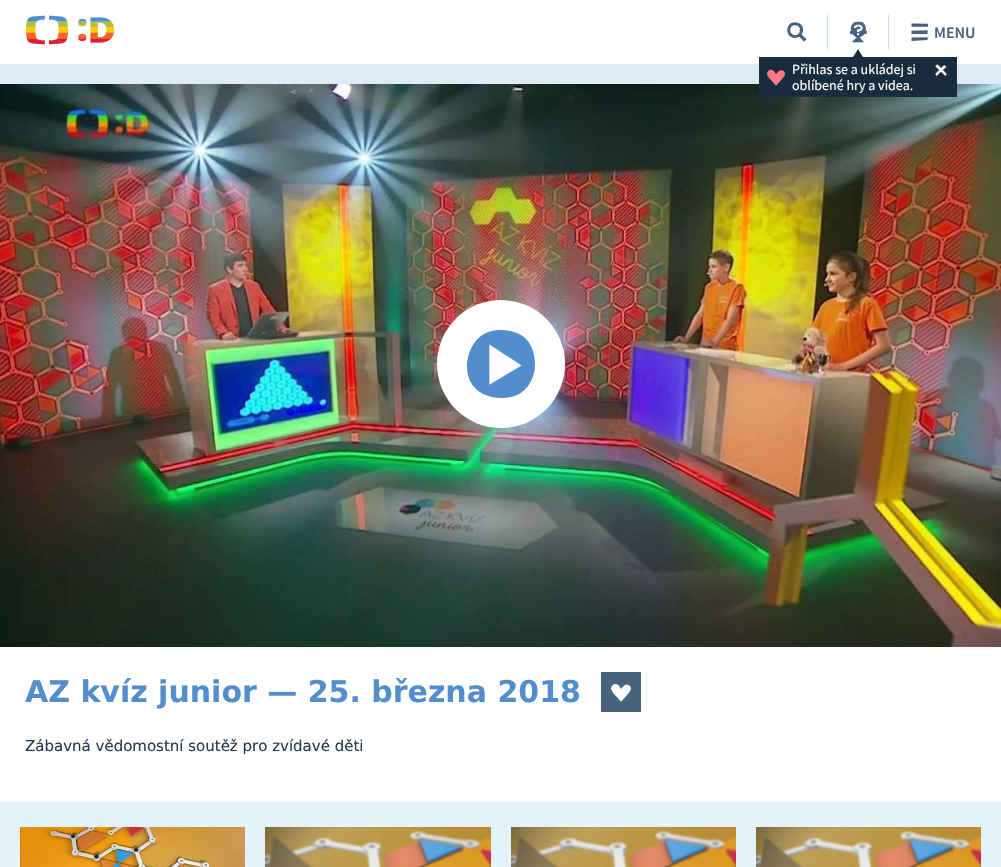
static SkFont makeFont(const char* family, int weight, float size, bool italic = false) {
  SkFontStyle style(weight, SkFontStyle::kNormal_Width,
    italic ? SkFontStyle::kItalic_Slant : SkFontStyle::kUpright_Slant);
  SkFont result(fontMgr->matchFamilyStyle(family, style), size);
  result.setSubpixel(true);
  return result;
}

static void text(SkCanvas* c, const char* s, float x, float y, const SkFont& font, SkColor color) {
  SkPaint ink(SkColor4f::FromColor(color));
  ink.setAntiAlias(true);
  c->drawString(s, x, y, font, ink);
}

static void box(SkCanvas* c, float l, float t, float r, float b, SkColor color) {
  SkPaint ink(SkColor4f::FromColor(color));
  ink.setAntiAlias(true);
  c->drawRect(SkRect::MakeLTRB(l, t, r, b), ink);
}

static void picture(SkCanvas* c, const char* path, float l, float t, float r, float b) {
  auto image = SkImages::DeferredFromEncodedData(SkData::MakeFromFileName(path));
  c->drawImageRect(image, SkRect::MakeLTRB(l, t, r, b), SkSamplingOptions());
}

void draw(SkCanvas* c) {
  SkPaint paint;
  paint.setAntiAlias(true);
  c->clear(0xffe0ecf5);
  box(c, 0, 0, 1001, 64, 0xffffffff);
  picture(c, "img_01.png", 25, 15, 115, 45);
  picture(c, "img_02.png", 787, 22, 807, 42);
  box(c, 888, 15, 889, 49, 0xffc3d7e6);
  picture(c, "img_03.png", 911, 23, 928, 41);
  SkFont face1 = makeFont("Source Sans Pro", 600, 16);
  text(c, "MENU", 934, 38, face1, 0xff486380);
  box(c, 827, 15, 828, 49, 0xffc3d7e6);
  picture(c, "img_04.png", 849, 21, 867, 43);
  picture(c, "img_07.png", 0, 84, 1001, 647);
  box(c, 759, 57, 957, 97, 0xff192c3d);
  paint.setColor(0xff192c3d);
  c->drawPath(SkPathBuilder().moveTo(863, 57).lineTo(853, 57).lineTo(858, 49).close().detach(), paint);
  picture(c, "img_05.png", 767, 69, 786, 86);
  SkFont face2 = makeFont("Source Sans Pro", 400, 14);
  text(c, "Přihlas se a ukládej si", 792, 74, face2, 0xffffffff);
  text(c, "oblíbené hry a videa.", 792, 90, face2, 0xffffffff);
  picture(c, "img_06.png", 935, 64, 947, 76);
  picture(c, "img_08.png", 437, 300, 565, 428);
  box(c, 0, 647, 1001, 802, 0xffffffff);
  SkFont face3 = makeFont("DejaVu Sans", 700, 30);
  text(c, "AZ kvíz junior — 25. března 2018", 25, 702, face3, 0xff518ecb);
  box(c, 601, 672, 641, 712, 0xff486380);
  picture(c, "img_09.png", 611, 684, 631, 702);
  SkFont face4 = makeFont("DejaVu Sans", 400, 15);
  text(c, "Zábavná vědomostní soutěž pro zvídavé děti", 25, 751, face4, 0xff213a52);
  box(c, 0, 802, 1001, 867, 0xffe6f2fa);
  picture(c, "img_10.png", 20, 827, 245, 867);
  picture(c, "img_11.png", 265, 827, 491, 867);
  picture(c, "img_12.png", 511, 827, 736, 867);
  picture(c, "img_13.png", 756, 827, 981, 867);
}
